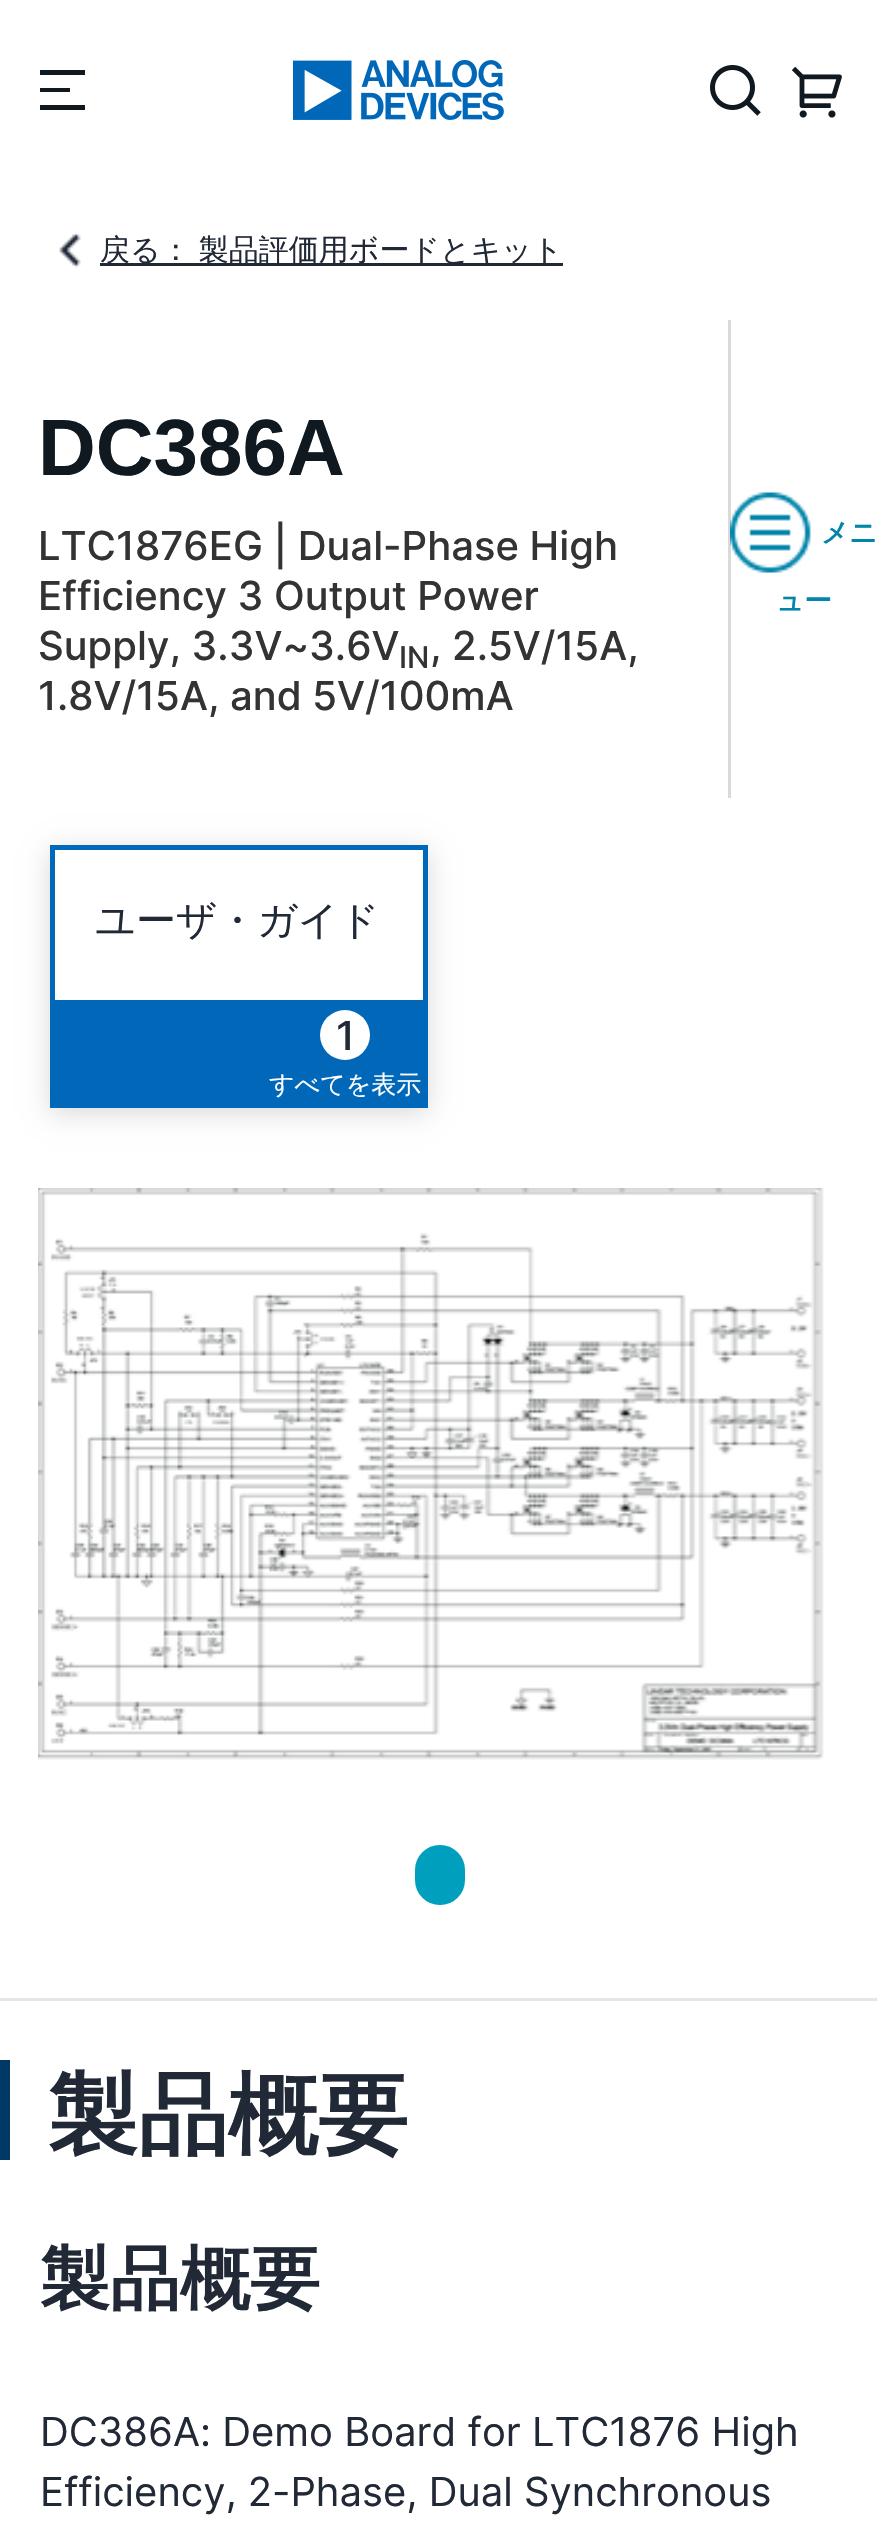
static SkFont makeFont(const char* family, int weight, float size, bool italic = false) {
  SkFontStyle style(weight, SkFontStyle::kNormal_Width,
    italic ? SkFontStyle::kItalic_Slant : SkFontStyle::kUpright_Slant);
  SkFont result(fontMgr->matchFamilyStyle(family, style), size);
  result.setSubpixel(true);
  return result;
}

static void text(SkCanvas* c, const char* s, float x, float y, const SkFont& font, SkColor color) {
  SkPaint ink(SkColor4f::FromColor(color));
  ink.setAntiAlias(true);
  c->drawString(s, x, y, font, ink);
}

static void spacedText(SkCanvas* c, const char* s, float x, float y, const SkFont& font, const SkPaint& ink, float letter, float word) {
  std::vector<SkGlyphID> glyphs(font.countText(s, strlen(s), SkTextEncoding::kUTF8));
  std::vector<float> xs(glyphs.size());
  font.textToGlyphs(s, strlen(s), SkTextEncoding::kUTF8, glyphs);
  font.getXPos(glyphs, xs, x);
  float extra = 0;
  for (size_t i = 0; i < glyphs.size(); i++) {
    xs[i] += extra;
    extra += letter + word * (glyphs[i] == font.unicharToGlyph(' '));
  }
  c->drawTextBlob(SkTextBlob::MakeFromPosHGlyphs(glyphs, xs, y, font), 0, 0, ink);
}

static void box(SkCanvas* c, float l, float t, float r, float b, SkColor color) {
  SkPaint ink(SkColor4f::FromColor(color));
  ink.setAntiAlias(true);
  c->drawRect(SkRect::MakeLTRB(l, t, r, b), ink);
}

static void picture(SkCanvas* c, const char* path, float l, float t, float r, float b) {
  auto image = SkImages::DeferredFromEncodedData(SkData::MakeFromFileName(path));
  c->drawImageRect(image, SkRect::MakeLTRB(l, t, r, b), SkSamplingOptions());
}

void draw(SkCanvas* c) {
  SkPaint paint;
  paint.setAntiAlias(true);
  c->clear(0xffffffff);
  paint.setColor(0xff101820);
  c->drawPath(SkPathBuilder().moveTo(40, 70).lineTo(85, 70).lineTo(85, 75).lineTo(40, 75).close().moveTo(40, 88).lineTo(70, 88).lineTo(70, 92).lineTo(40, 92).close().moveTo(40, 105).lineTo(85, 105).lineTo(85, 110).lineTo(40, 110).close().detach(), paint);
  picture(c, "img_01.png", 293, 60, 504, 120);
  picture(c, "img_02.png", 710, 65, 761, 116);
  picture(c, "img_03.png", 791, 66, 842, 118);
  picture(c, "img_04.png", 59, 232, 81, 268);
  box(c, 100, 263, 563, 266, 0xff212836);
  SkFont face1 = makeFont("WenQuanYi Zen Hei", 500, 30);
  paint.setColor(0xff212836);
  spacedText(c, "戻る： 製品評価用ボードとキット", 100, 260, face1, paint, 0, -1);
  SkFont face2 = makeFont("Liberation Sans", 700, 80);
  text(c, "DC386A", 38, 475, face2, 0xff101820);
  SkFont face3 = makeFont("Inter", 500, 40);
  text(c, "LTC1876EG | Dual-Phase High", 38, 560, face3, 0xff333333);
  text(c, "Efficiency 3 Output Power", 38, 610, face3, 0xff333333);
  text(c, "Supply, 3.3V~3.6V", 38, 660, face3, 0xff333333);
  SkFont face4 = makeFont("Inter", 500, 30);
  text(c, "IN", 399, 668, face4, 0xff333333);
  text(c, ", 2.5V/15A,", 430, 660, face3, 0xff333333);
  text(c, "1.8V/15A, and 5V/100mA", 38, 710, face3, 0xff333333);
  box(c, 728, 320, 731, 798, 0xffdadada);
  picture(c, "img_05.png", 730, 492, 811, 573);
  SkFont face5 = makeFont("WenQuanYi Zen Hei", 700, 27.5f);
  text(c, "メニ", 821, 542, face5, 0xff0285aa);
  text(c, "ュー", 776, 610, face5, 0xff0285aa);
  box(c, 0, 1998, 877, 2001, 0xffe6e6e6);
  paint.setColor(0x26000000);
  paint.setMaskFilter(SkMaskFilter::MakeBlur(kNormal_SkBlurStyle, 12.5f));
  c->drawRect(SkRect::MakeLTRB(50, 850, 428, 1113), paint);
  paint.setMaskFilter(nullptr);
  box(c, 50, 845, 428, 1108, 0xff0067b9);
  box(c, 55, 850, 423, 1000, 0xffffffff);
  SkFont face6 = makeFont("WenQuanYi Zen Hei", 500, 40);
  text(c, "ユーザ・ガイド", 95, 934, face6, 0xff212836);
  paint.setColor(0xffffffff);
  c->drawCircle(345, 1035, 25, paint);
  text(c, "1", 336, 1050, face3, 0xff212836);
  SkFont face7 = makeFont("WenQuanYi Zen Hei", 500, 25);
  text(c, "すべてを表示", 269, 1093, face7, 0xffffffff);
  picture(c, "img_06.png", 38, 1188, 824, 1760);
  paint.setColor(0xff009fbd);
  c->drawRoundRect(SkRect::MakeLTRB(417.5f, 1847.5f, 462.5f, 1902.5f), 22.5f, 22.5f, paint);
  paint.setStyle(SkPaint::kStroke_Style);
  paint.setStrokeWidth(5);
  c->drawRoundRect(SkRect::MakeLTRB(417.5f, 1847.5f, 462.5f, 1902.5f), 22.5f, 22.5f, paint);
  box(c, 0, 2060, 10, 2160, 0xff003965);
  SkFont face8 = makeFont("WenQuanYi Zen Hei", 700, 90);
  text(c, "製品概要", 48, 2146, face8, 0xff212836);
  SkFont face9 = makeFont("WenQuanYi Zen Hei", 700, 70);
  text(c, "製品概要", 40, 2303, face9, 0xff212836);
  SkFont face10 = makeFont("Inter", 400, 40);
  text(c, "DC386A: Demo Board for LTC1876 High", 40, 2446, face10, 0xff212836);
  text(c, "Efficiency, 2-Phase, Dual Synchronous", 40, 2506, face10, 0xff212836);
}
